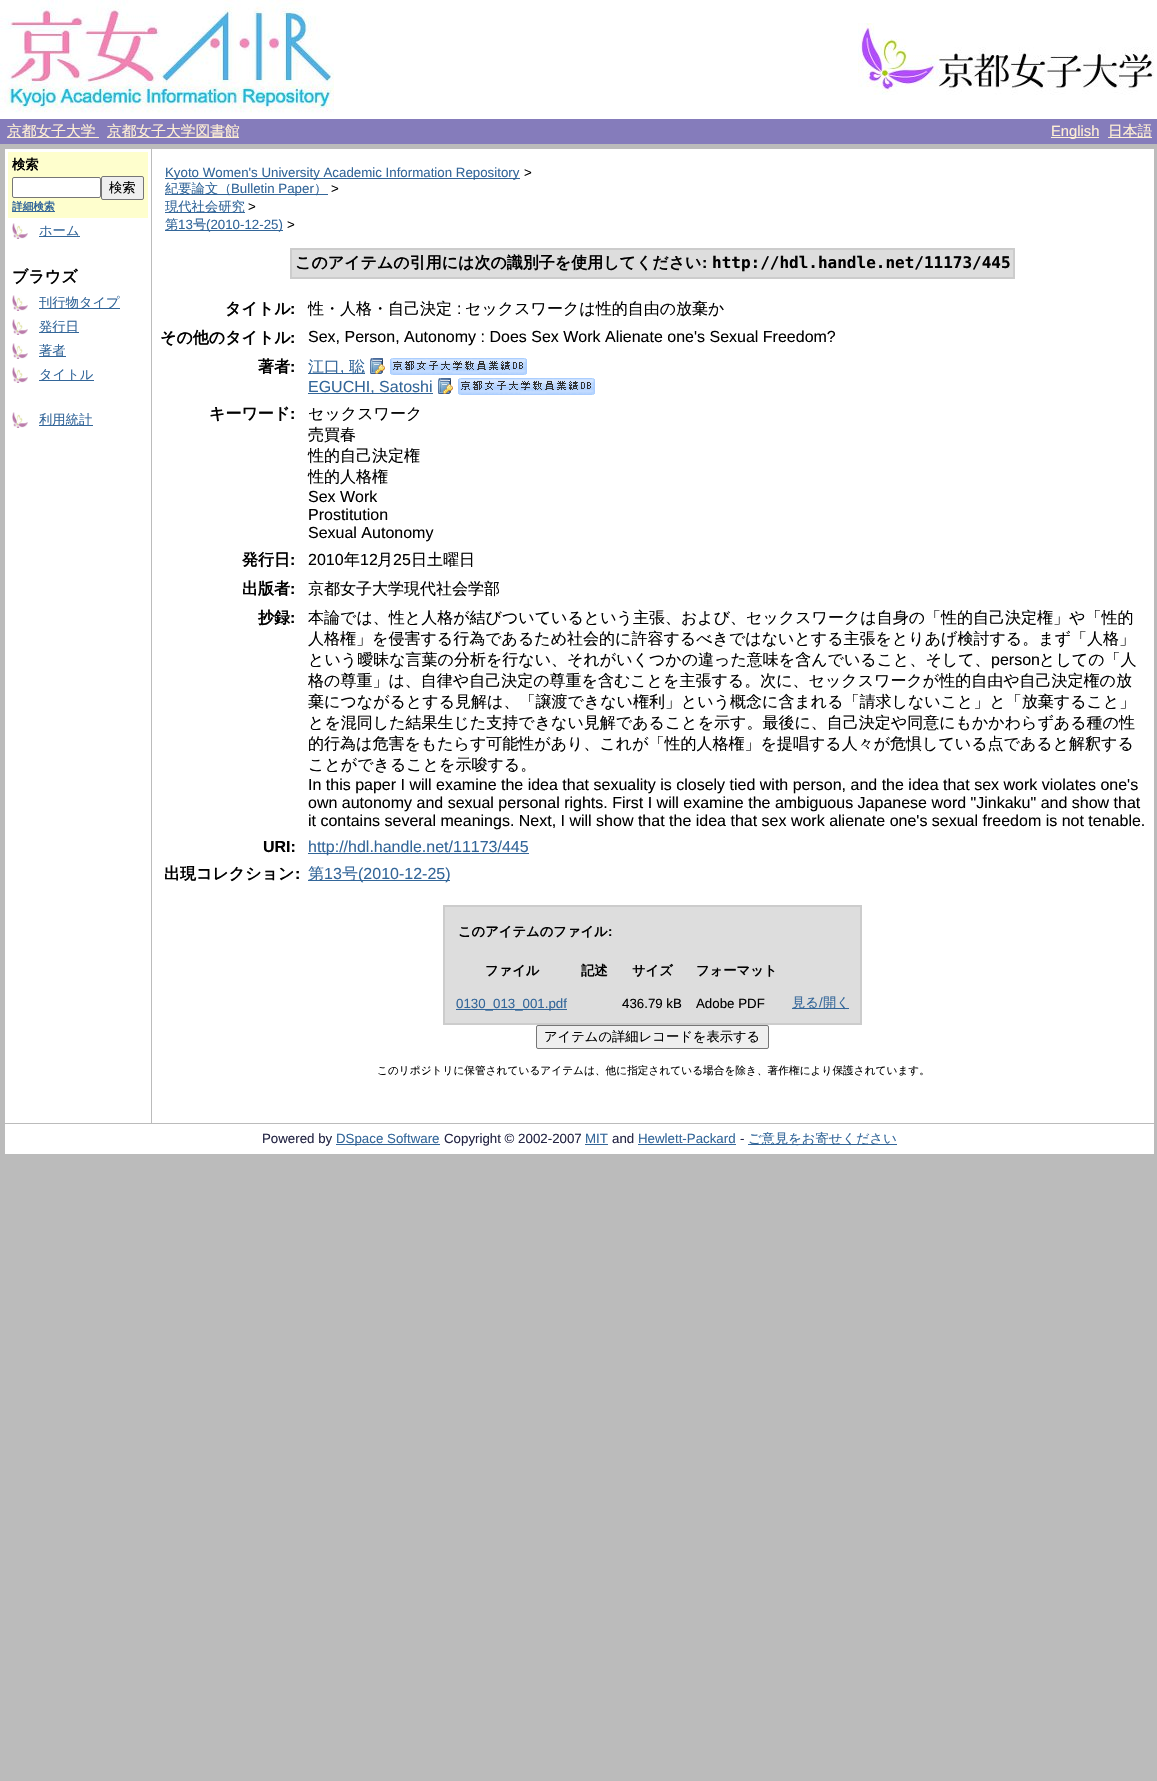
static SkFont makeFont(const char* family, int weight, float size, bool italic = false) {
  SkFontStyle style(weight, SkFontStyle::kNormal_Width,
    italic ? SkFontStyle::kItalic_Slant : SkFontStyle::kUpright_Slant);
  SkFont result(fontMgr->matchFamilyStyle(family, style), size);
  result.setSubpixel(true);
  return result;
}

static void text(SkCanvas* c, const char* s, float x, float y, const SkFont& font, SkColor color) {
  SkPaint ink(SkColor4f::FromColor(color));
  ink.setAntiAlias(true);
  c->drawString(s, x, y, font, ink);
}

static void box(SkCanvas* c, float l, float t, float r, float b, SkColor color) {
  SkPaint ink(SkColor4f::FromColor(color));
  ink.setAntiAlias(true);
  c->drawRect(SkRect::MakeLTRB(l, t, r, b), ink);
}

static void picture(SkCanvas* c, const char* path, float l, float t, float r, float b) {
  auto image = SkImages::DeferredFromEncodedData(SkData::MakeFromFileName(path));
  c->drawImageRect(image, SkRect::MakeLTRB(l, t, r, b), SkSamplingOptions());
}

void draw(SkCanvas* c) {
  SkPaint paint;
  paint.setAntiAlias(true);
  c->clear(0xffbbbbbb);
  box(c, 0, 0, 1157, 119, 0xffffffff);
  picture(c, "img_01.png", 0, 0, 334, 113);
  picture(c, "img_02.png", 858, 23, 1154, 95);
  box(c, 0, 119, 1157, 144, 0xff857cbb);
  box(c, 7, 137, 99, 138, 0xffffefd5);
  SkFont face1 = makeFont("WenQuanYi Zen Hei", 500, 14.75f);
  text(c, "京都女子大学", 7, 136, face1, 0xffffefd5);
  box(c, 107, 137, 239, 138, 0xffffefd5);
  text(c, "京都女子大学図書館", 107, 136, face1, 0xffffefd5);
  box(c, 1051, 137, 1099, 138, 0xffffefd5);
  SkFont face2 = makeFont("Liberation Sans", 400, 14.75f);
  text(c, "English", 1051, 136, face2, 0xffffefd5);
  box(c, 1108, 137, 1152, 138, 0xffffefd5);
  text(c, "日本語", 1108, 136, face1, 0xffffefd5);
  box(c, 5, 149, 151, 1123, 0xffffffff);
  box(c, 8, 152, 148, 218, 0xfffefecd);
  SkFont face3 = makeFont("WenQuanYi Zen Hei", 700, 13.3f);
  text(c, "検索", 12, 169, face3, 0xff000000);
  paint.setColor(0xffffffff);
  c->drawRoundRect(SkRect::MakeLTRB(12.5f, 177.5f, 100.5f, 197.5f), 1.5f, 1.5f, paint);
  paint.setStyle(SkPaint::kStroke_Style);
  paint.setStrokeWidth(1);
  paint.setColor(0xff767676);
  c->drawRoundRect(SkRect::MakeLTRB(12.5f, 177.5f, 100.5f, 197.5f), 1.5f, 1.5f, paint);
  paint.setStyle(SkPaint::kFill_Style);
  paint.setColor(0xffefefef);
  c->drawRoundRect(SkRect::MakeLTRB(101.5f, 176.5f, 143.5f, 199.5f), 1.5f, 1.5f, paint);
  paint.setStyle(SkPaint::kStroke_Style);
  paint.setColor(0xff767676);
  c->drawRoundRect(SkRect::MakeLTRB(101.5f, 176.5f, 143.5f, 199.5f), 1.5f, 1.5f, paint);
  SkFont face4 = makeFont("WenQuanYi Zen Hei", 500, 13.3f);
  text(c, "検索", 109, 192, face4, 0xff000000);
  box(c, 12, 211, 55, 212, 0xff336699);
  SkFont face5 = makeFont("WenQuanYi Zen Hei", 700, 10.67f);
  text(c, "詳細検索", 12, 210, face5, 0xff336699);
  picture(c, "img_03.png", 12, 223, 28, 239);
  box(c, 39, 236, 80, 237, 0xff336699);
  text(c, "ホーム", 39, 235, face4, 0xff336699);
  SkFont face6 = makeFont("WenQuanYi Zen Hei", 700, 16);
  text(c, "ブラウズ", 12, 282, face6, 0xff000000);
  picture(c, "img_03.png", 12, 295, 28, 311);
  box(c, 39, 308, 120, 309, 0xff336699);
  text(c, "刊行物タイプ", 39, 307, face4, 0xff336699);
  picture(c, "img_03.png", 12, 319, 28, 335);
  box(c, 39, 332, 79, 333, 0xff336699);
  text(c, "発行日", 39, 331, face4, 0xff336699);
  picture(c, "img_03.png", 12, 343, 28, 359);
  box(c, 39, 356, 66, 357, 0xff336699);
  text(c, "著者", 39, 355, face4, 0xff336699);
  picture(c, "img_03.png", 12, 367, 28, 383);
  box(c, 39, 380, 94, 381, 0xff336699);
  text(c, "タイトル", 39, 379, face4, 0xff336699);
  picture(c, "img_03.png", 12, 412, 28, 428);
  box(c, 39, 425, 93, 426, 0xff336699);
  text(c, "利用統計", 39, 424, face4, 0xff336699);
  box(c, 152, 149, 1154, 1123, 0xffffffff);
  box(c, 165, 178, 520, 179, 0xff336699);
  SkFont face7 = makeFont("Liberation Sans", 400, 13.3f);
  text(c, "Kyoto Women's University Academic Information Repository", 165, 177, face7, 0xff336699);
  text(c, ">", 524, 177, face7, 0xff000000);
  box(c, 165, 194, 328, 195, 0xff336699);
  text(c, "紀要論文（", 165, 193, face4, 0xff336699);
  text(c, "Bulletin Paper", 231, 193, face7, 0xff336699);
  text(c, "）", 314, 193, face4, 0xff336699);
  text(c, ">", 331, 193, face7, 0xff000000);
  box(c, 165, 212, 245, 213, 0xff336699);
  text(c, "現代社会研究", 165, 211, face4, 0xff336699);
  text(c, ">", 248, 211, face7, 0xff000000);
  box(c, 165, 230, 283, 231, 0xff336699);
  text(c, "第", 165, 229, face4, 0xff336699);
  text(c, "13", 178, 229, face7, 0xff336699);
  text(c, "号", 193, 229, face4, 0xff336699);
  text(c, "(2010-12-25)", 206, 229, face7, 0xff336699);
  text(c, ">", 287, 229, face7, 0xff000000);
  box(c, 290, 248, 1015, 279, 0xffcccccc);
  box(c, 292, 250, 1013, 277, 0xffdddddd);
  text(c, "このアイテムの引用には次の識別子を使用してください", 295, 268, face6, 0xff000000);
  SkFont face8 = makeFont("Liberation Sans", 700, 16);
  text(c, ":", 702, 268, face8, 0xff000000);
  SkFont face9 = makeFont("DejaVu Sans Mono", 700, 16);
  text(c, "http://hdl.handle.net/11173/445", 712, 268, face9, 0xff000000);
  text(c, "タイトル", 225, 314, face6, 0xff000000);
  text(c, ":", 290, 314, face8, 0xff000000);
  SkFont face10 = makeFont("WenQuanYi Zen Hei", 500, 16);
  text(c, "性・人格・自己決定", 308, 314, face10, 0xff000000);
  SkFont face11 = makeFont("Liberation Sans", 400, 16);
  text(c, ":", 457, 314, face11, 0xff000000);
  text(c, "セックスワークは性的自由の放棄か", 465, 314, face10, 0xff000000);
  text(c, "その他のタイトル", 160, 343, face6, 0xff000000);
  text(c, ":", 290, 343, face8, 0xff000000);
  text(c, "Sex, Person, Autonomy : Does Sex Work Alienate one's Sexual Freedom?", 308, 342, face11, 0xff000000);
  text(c, "著者", 258, 372, face6, 0xff000000);
  text(c, ":", 290, 372, face8, 0xff000000);
  box(c, 308, 373, 365, 374, 0xff336699);
  text(c, "江口", 308, 372, face10, 0xff336699);
  text(c, ",", 340, 372, face11, 0xff336699);
  text(c, "聡", 349, 372, face10, 0xff336699);
  picture(c, "img_04.png", 370, 358, 385, 374);
  picture(c, "img_05.png", 390, 358, 527, 375);
  box(c, 308, 393, 433, 394, 0xff336699);
  text(c, "EGUCHI, Satoshi", 308, 392, face11, 0xff336699);
  picture(c, "img_04.png", 438, 378, 453, 394);
  picture(c, "img_05.png", 458, 378, 595, 395);
  text(c, "キーワード", 209, 419, face6, 0xff000000);
  text(c, ":", 290, 419, face8, 0xff000000);
  text(c, "セックスワーク", 308, 419, face10, 0xff000000);
  text(c, "売買春", 308, 440, face10, 0xff000000);
  text(c, "性的自己決定権", 308, 461, face10, 0xff000000);
  text(c, "性的人格権", 308, 482, face10, 0xff000000);
  text(c, "Sex Work", 308, 502, face11, 0xff000000);
  text(c, "Prostitution", 308, 520, face11, 0xff000000);
  text(c, "Sexual Autonomy", 308, 538, face11, 0xff000000);
  text(c, "発行日", 242, 565, face6, 0xff000000);
  text(c, ":", 290, 565, face8, 0xff000000);
  text(c, "2010", 308, 565, face11, 0xff000000);
  text(c, "年", 344, 565, face10, 0xff000000);
  text(c, "12", 360, 565, face11, 0xff000000);
  text(c, "月", 377, 565, face10, 0xff000000);
  text(c, "25", 393, 565, face11, 0xff000000);
  text(c, "日土曜日", 411, 565, face10, 0xff000000);
  text(c, "出版者", 242, 594, face6, 0xff000000);
  text(c, ":", 290, 594, face8, 0xff000000);
  text(c, "京都女子大学現代社会学部", 308, 594, face10, 0xff000000);
  text(c, "抄録", 258, 623, face6, 0xff000000);
  text(c, ":", 290, 623, face8, 0xff000000);
  text(c, "本論では、性と人格が結びついているという主張、および、セックスワークは自身の「性的自己決定権」や「性的", 308, 623, face10, 0xff000000);
  text(c, "人格権」を侵害する行為であるため社会的に許容するべきではないとする主張をとりあげ検討する。まず「人格」", 308, 644, face10, 0xff000000);
  text(c, "という曖昧な言葉の分析を行ない、それがいくつかの違った意味を含んでいること、そして、", 308, 665, face10, 0xff000000);
  text(c, "person", 991, 665, face11, 0xff000000);
  text(c, "としての「人", 1039, 665, face10, 0xff000000);
  text(c, "格の尊重」は、自律や自己決定の尊重を含むことを主張する。次に、セックスワークが性的自由や自己決定権の放", 308, 686, face10, 0xff000000);
  text(c, "棄につながるとする見解は、「譲渡できない権利」という概念に含まれる「請求しないこと」と「放棄すること」", 308, 707, face10, 0xff000000);
  text(c, "とを混同した結果生じた支持できない見解であることを示す。最後に、自己決定や同意にもかかわらずある種の性", 308, 728, face10, 0xff000000);
  text(c, "的行為は危害をもたらす可能性があり、これが「性的人格権」を提唱する人々が危惧している点であると解釈する", 308, 749, face10, 0xff000000);
  text(c, "ことができることを示唆する。", 308, 770, face10, 0xff000000);
  text(c, "In this paper I will examine the idea that sexuality is closely tied with person, and the idea that sex work violates one's", 308, 790, face11, 0xff000000);
  text(c, "own autonomy and sexual personal rights. First I will examine the ambiguous Japanese word \"Jinkaku\" and show that", 308, 808, face11, 0xff000000);
  text(c, "it contains several meanings. Next, I will show that the idea that sex work alienate one's sexual freedom is not tenable.", 308, 826, face11, 0xff000000);
  text(c, "URI:", 263, 852, face8, 0xff000000);
  box(c, 308, 853, 529, 854, 0xff336699);
  text(c, "http://hdl.handle.net/11173/445", 308, 852, face11, 0xff336699);
  text(c, "出現コレクション", 164, 879, face6, 0xff000000);
  text(c, ":", 295, 879, face8, 0xff000000);
  box(c, 308, 880, 450, 881, 0xff336699);
  text(c, "第", 308, 879, face10, 0xff336699);
  text(c, "13", 324, 879, face11, 0xff336699);
  text(c, "号", 342, 879, face10, 0xff336699);
  text(c, "(2010-12-25)", 358, 879, face11, 0xff336699);
  box(c, 443, 905, 862, 1025, 0xffcccccc);
  box(c, 445, 907, 860, 1023, 0xffdddddd);
  text(c, "このアイテムのファイル", 458, 936, face3, 0xff000000);
  SkFont face12 = makeFont("Liberation Sans", 700, 13.3f);
  text(c, ":", 608, 936, face12, 0xff000000);
  text(c, "ファイル", 485, 975, face3, 0xff000000);
  text(c, "記述", 581, 975, face3, 0xff000000);
  text(c, "サイズ", 632, 975, face3, 0xff000000);
  text(c, "フォーマット", 696, 975, face3, 0xff000000);
  box(c, 456, 1009, 567, 1010, 0xff336699);
  text(c, "0130_013_001.pdf", 456, 1008, face7, 0xff336699);
  text(c, "436.79 kB", 622, 1008, face7, 0xff000000);
  text(c, "Adobe PDF", 696, 1008, face7, 0xff000000);
  box(c, 792, 1008, 849, 1009, 0xff336699);
  text(c, "見る 開く", 792, 1007, face4, 0xff336699);
  text(c, "/", 819, 1007, face7, 0xff336699);
  paint.setStyle(SkPaint::kFill_Style);
  paint.setColor(0xffefefef);
  c->drawRoundRect(SkRect::MakeLTRB(536.5f, 1025.5f, 768.5f, 1048.5f), 1.5f, 1.5f, paint);
  paint.setStyle(SkPaint::kStroke_Style);
  paint.setColor(0xff767676);
  c->drawRoundRect(SkRect::MakeLTRB(536.5f, 1025.5f, 768.5f, 1048.5f), 1.5f, 1.5f, paint);
  text(c, "アイテムの詳細レコードを表示する", 544, 1041, face4, 0xff000000);
  SkFont face13 = makeFont("WenQuanYi Zen Hei", 500, 10.67f);
  text(c, "このリポジトリに保管されているアイテムは、他に指定されている場合を除き、著作権により保護されています。", 377, 1074, face13, 0xff000000);
  box(c, 5, 1124, 1154, 1154, 0xffffffff);
  text(c, "Powered by", 262, 1143, face7, 0xff252645);
  box(c, 336, 1144, 440, 1145, 0xff336699);
  text(c, "DSpace Software", 336, 1143, face7, 0xff336699);
  text(c, "Copyright © 2002-2007", 444, 1143, face7, 0xff252645);
  text(c, "MIT", 585, 1143, face7, 0xff336699);
  box(c, 585, 1144, 608, 1145, 0xff336699);
  text(c, "and", 612, 1143, face7, 0xff252645);
  text(c, "Hewlett-Packard", 638, 1143, face7, 0xff336699);
  box(c, 638, 1144, 736, 1145, 0xff336699);
  text(c, "-", 740, 1143, face7, 0xff252645);
  box(c, 748, 1144, 897, 1145, 0xff336699);
  text(c, "ご意見をお寄せください", 748, 1143, face4, 0xff336699);
}
